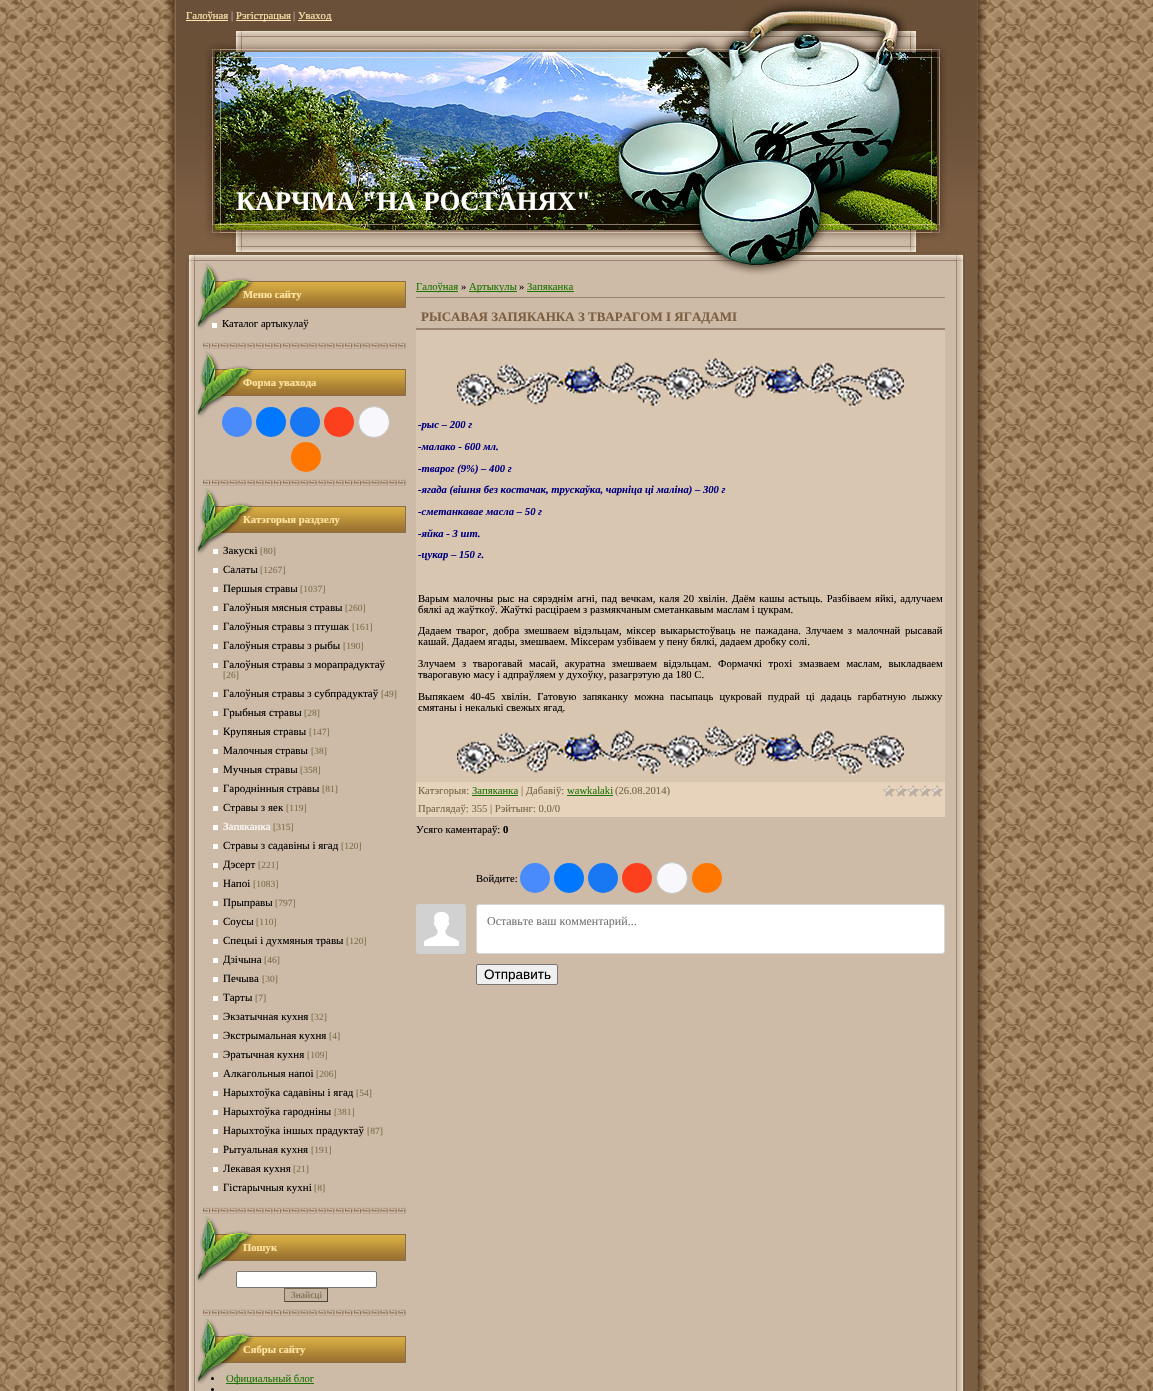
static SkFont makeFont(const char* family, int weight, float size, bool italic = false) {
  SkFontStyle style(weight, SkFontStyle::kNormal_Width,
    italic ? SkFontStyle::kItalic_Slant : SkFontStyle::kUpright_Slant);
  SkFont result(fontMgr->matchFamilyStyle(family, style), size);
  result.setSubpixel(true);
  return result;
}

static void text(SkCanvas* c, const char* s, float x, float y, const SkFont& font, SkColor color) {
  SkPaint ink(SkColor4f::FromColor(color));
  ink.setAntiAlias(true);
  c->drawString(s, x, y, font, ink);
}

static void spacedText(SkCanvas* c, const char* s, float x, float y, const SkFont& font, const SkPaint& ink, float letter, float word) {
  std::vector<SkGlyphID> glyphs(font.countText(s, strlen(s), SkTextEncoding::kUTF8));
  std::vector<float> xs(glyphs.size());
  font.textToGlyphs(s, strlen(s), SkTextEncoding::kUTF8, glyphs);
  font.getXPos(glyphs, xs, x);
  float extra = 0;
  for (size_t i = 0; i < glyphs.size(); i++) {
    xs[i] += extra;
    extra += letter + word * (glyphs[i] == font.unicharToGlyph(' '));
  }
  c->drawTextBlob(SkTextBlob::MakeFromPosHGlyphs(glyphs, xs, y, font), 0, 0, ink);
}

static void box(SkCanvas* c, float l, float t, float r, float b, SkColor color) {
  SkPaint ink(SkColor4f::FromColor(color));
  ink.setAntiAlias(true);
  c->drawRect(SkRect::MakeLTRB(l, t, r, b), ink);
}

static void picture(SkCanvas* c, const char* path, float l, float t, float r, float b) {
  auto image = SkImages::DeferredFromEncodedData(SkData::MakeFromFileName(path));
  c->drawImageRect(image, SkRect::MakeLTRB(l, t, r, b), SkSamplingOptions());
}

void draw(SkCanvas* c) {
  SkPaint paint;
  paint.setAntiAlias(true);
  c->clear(0xffffffff);
  picture(c, "img_01.png", 0, 0, 1153, 1391);
  box(c, 176, 0, 977, 31, 0xff6a5039);
  picture(c, "img_02.png", 741, 2, 907, 31);
  box(c, 186, 20, 228, 21, 0xffffe7af);
  SkFont face1 = makeFont("Liberation Serif", 400, 10.65f);
  text(c, "Галоўная", 186, 19, face1, 0xffffe7af);
  text(c, "|", 231, 19, face1, 0xffcdbba7);
  box(c, 236, 20, 291, 21, 0xffffe7af);
  text(c, "Рэгістрацыя", 236, 19, face1, 0xffffe7af);
  text(c, "|", 293, 19, face1, 0xffcdbba7);
  box(c, 298, 20, 332, 21, 0xffffe7af);
  text(c, "Уваход", 298, 19, face1, 0xffffe7af);
  picture(c, "img_03.png", 176, 31, 977, 252);
  SkFont face2 = makeFont("Liberation Serif", 700, 26.7f);
  text(c, "КАРЧМА \"НА РОСТАНЯХ\"", 236, 210, face2, 0xffffffff);
  picture(c, "img_04.png", 176, 252, 977, 1391);
  picture(c, "img_05.png", 186, 252, 965, 275);
  picture(c, "img_06.png", 203, 342, 406, 349);
  picture(c, "img_07.png", 200, 263, 406, 308);
  SkFont face3 = makeFont("Liberation Serif", 700, 10.65f);
  text(c, "Меню сайту", 243, 298, face3, 0xffffe3a1);
  picture(c, "img_08.png", 196, 308, 228, 330);
  box(c, 212, 323, 217, 328, 0xffffffff);
  text(c, "Каталог артыкулаў", 222, 327, face1, 0xff000000);
  picture(c, "img_06.png", 203, 479, 406, 486);
  picture(c, "img_07.png", 200, 351, 406, 396);
  text(c, "Форма увахода", 243, 386, face3, 0xffffe3a1);
  picture(c, "img_08.png", 196, 396, 228, 418);
  paint.setColor(0xff498bfa);
  c->drawCircle(237, 422, 15, paint);
  paint.setColor(0xff0077ff);
  c->drawCircle(271, 422, 15, paint);
  paint.setColor(0xff1877f2);
  c->drawCircle(305, 422, 15, paint);
  paint.setColor(0xfffc3f1d);
  c->drawCircle(339, 422, 15, paint);
  paint.setColor(0xfff8f8fc);
  c->drawCircle(374, 422, 15.5f, paint);
  paint.setStyle(SkPaint::kStroke_Style);
  paint.setStrokeWidth(1);
  paint.setColor(0xffc4c4c4);
  c->drawCircle(374, 422, 15.5f, paint);
  paint.setStyle(SkPaint::kFill_Style);
  paint.setColor(0xffff7700);
  c->drawCircle(306, 457, 15, paint);
  picture(c, "img_06.png", 203, 1207, 406, 1214);
  picture(c, "img_07.png", 200, 488, 406, 533);
  text(c, "Катэгорыя раздзелу", 243, 523, face3, 0xffffe3a1);
  picture(c, "img_08.png", 196, 533, 228, 555);
  box(c, 213, 549, 218, 554, 0xffffffff);
  SkFont face4 = makeFont("Liberation Serif", 400, 11);
  text(c, "Закускі", 223, 554, face4, 0xff000000);
  SkFont face5 = makeFont("Liberation Serif", 400, 9.5f);
  text(c, "[80]", 260, 554, face5, 0xff7b6d4b);
  box(c, 213, 568, 218, 573, 0xffffffff);
  text(c, "Салаты", 223, 573, face4, 0xff000000);
  text(c, "[1267]", 260, 573, face5, 0xff7b6d4b);
  box(c, 213, 587, 218, 592, 0xffffffff);
  text(c, "Першыя стравы", 223, 592, face4, 0xff000000);
  text(c, "[1037]", 300, 592, face5, 0xff7b6d4b);
  box(c, 213, 606, 218, 611, 0xffffffff);
  text(c, "Галоўныя мясныя стравы", 223, 611, face4, 0xff000000);
  text(c, "[260]", 345, 611, face5, 0xff7b6d4b);
  box(c, 213, 625, 218, 630, 0xffffffff);
  text(c, "Галоўныя стравы з птушак", 223, 630, face4, 0xff000000);
  text(c, "[161]", 352, 630, face5, 0xff7b6d4b);
  box(c, 213, 644, 218, 649, 0xffffffff);
  text(c, "Галоўныя стравы з рыбы", 223, 649, face4, 0xff000000);
  text(c, "[190]", 343, 649, face5, 0xff7b6d4b);
  box(c, 213, 663, 218, 668, 0xffffffff);
  text(c, "Галоўныя стравы з морапрадуктаў", 223, 668, face4, 0xff000000);
  text(c, "[26]", 223, 678, face5, 0xff7b6d4b);
  box(c, 213, 692, 218, 697, 0xffffffff);
  text(c, "Галоўныя стравы з субпрадуктаў", 223, 697, face4, 0xff000000);
  text(c, "[49]", 381, 697, face5, 0xff7b6d4b);
  box(c, 213, 711, 218, 716, 0xffffffff);
  text(c, "Грыбныя стравы", 223, 716, face4, 0xff000000);
  text(c, "[28]", 304, 716, face5, 0xff7b6d4b);
  box(c, 213, 730, 218, 735, 0xffffffff);
  text(c, "Крупяныя стравы", 223, 735, face4, 0xff000000);
  text(c, "[147]", 309, 735, face5, 0xff7b6d4b);
  box(c, 213, 749, 218, 754, 0xffffffff);
  text(c, "Малочныя стравы", 223, 754, face4, 0xff000000);
  text(c, "[38]", 311, 754, face5, 0xff7b6d4b);
  box(c, 213, 768, 218, 773, 0xffffffff);
  text(c, "Мучныя стравы", 223, 773, face4, 0xff000000);
  text(c, "[358]", 300, 773, face5, 0xff7b6d4b);
  box(c, 213, 787, 218, 792, 0xffffffff);
  text(c, "Гароднінныя стравы", 223, 792, face4, 0xff000000);
  text(c, "[81]", 322, 792, face5, 0xff7b6d4b);
  box(c, 213, 806, 218, 811, 0xffffffff);
  text(c, "Стравы з яек", 223, 811, face4, 0xff000000);
  text(c, "[119]", 286, 811, face5, 0xff7b6d4b);
  box(c, 213, 825, 218, 830, 0xffffffff);
  text(c, "Запяканка", 223, 830, face4, 0xffffffff);
  text(c, "[315]", 273, 830, face5, 0xff7b6d4b);
  box(c, 213, 844, 218, 849, 0xffffffff);
  text(c, "Стравы з садавіны і ягад", 223, 849, face4, 0xff000000);
  text(c, "[120]", 341, 849, face5, 0xff7b6d4b);
  box(c, 213, 863, 218, 868, 0xffffffff);
  text(c, "Дэсерт", 223, 868, face4, 0xff000000);
  text(c, "[221]", 258, 868, face5, 0xff7b6d4b);
  box(c, 213, 882, 218, 887, 0xffffffff);
  text(c, "Напоі", 223, 887, face4, 0xff000000);
  text(c, "[1083]", 253, 887, face5, 0xff7b6d4b);
  box(c, 213, 901, 218, 906, 0xffffffff);
  text(c, "Прыправы", 223, 906, face4, 0xff000000);
  text(c, "[797]", 275, 906, face5, 0xff7b6d4b);
  box(c, 213, 920, 218, 925, 0xffffffff);
  text(c, "Соусы", 223, 925, face4, 0xff000000);
  text(c, "[110]", 256, 925, face5, 0xff7b6d4b);
  box(c, 213, 939, 218, 944, 0xffffffff);
  text(c, "Спецыі і духмяныя травы", 223, 944, face4, 0xff000000);
  text(c, "[120]", 346, 944, face5, 0xff7b6d4b);
  box(c, 213, 958, 218, 963, 0xffffffff);
  text(c, "Дзічына", 223, 963, face4, 0xff000000);
  text(c, "[46]", 264, 963, face5, 0xff7b6d4b);
  box(c, 213, 977, 218, 982, 0xffffffff);
  text(c, "Печыва", 223, 982, face4, 0xff000000);
  text(c, "[30]", 262, 982, face5, 0xff7b6d4b);
  box(c, 213, 996, 218, 1001, 0xffffffff);
  text(c, "Тарты", 223, 1001, face4, 0xff000000);
  text(c, "[7]", 255, 1001, face5, 0xff7b6d4b);
  box(c, 213, 1015, 218, 1020, 0xffffffff);
  text(c, "Экзатычная кухня", 223, 1020, face4, 0xff000000);
  text(c, "[32]", 311, 1020, face5, 0xff7b6d4b);
  box(c, 213, 1034, 218, 1039, 0xffffffff);
  text(c, "Экстрымальная кухня", 223, 1039, face4, 0xff000000);
  text(c, "[4]", 329, 1039, face5, 0xff7b6d4b);
  box(c, 213, 1053, 218, 1058, 0xffffffff);
  text(c, "Эратычная кухня", 223, 1058, face4, 0xff000000);
  text(c, "[109]", 307, 1058, face5, 0xff7b6d4b);
  box(c, 213, 1072, 218, 1077, 0xffffffff);
  text(c, "Алкагольныя напоі", 223, 1077, face4, 0xff000000);
  text(c, "[206]", 316, 1077, face5, 0xff7b6d4b);
  box(c, 213, 1091, 218, 1096, 0xffffffff);
  text(c, "Нарыхтоўка садавіны і ягад", 223, 1096, face4, 0xff000000);
  text(c, "[54]", 356, 1096, face5, 0xff7b6d4b);
  box(c, 213, 1110, 218, 1115, 0xffffffff);
  text(c, "Нарыхтоўка гародніны", 223, 1115, face4, 0xff000000);
  text(c, "[381]", 334, 1115, face5, 0xff7b6d4b);
  box(c, 213, 1129, 218, 1134, 0xffffffff);
  text(c, "Нарыхтоўка іншых прадуктаў", 223, 1134, face4, 0xff000000);
  text(c, "[87]", 367, 1134, face5, 0xff7b6d4b);
  box(c, 213, 1148, 218, 1153, 0xffffffff);
  text(c, "Рытуальная кухня", 223, 1153, face4, 0xff000000);
  text(c, "[191]", 311, 1153, face5, 0xff7b6d4b);
  box(c, 213, 1167, 218, 1172, 0xffffffff);
  text(c, "Лекавая кухня", 223, 1172, face4, 0xff000000);
  text(c, "[21]", 293, 1172, face5, 0xff7b6d4b);
  box(c, 213, 1186, 218, 1191, 0xffffffff);
  text(c, "Гістарычныя кухні", 223, 1191, face4, 0xff000000);
  text(c, "[8]", 314, 1191, face5, 0xff7b6d4b);
  picture(c, "img_06.png", 203, 1309, 406, 1316);
  picture(c, "img_07.png", 200, 1216, 406, 1261);
  text(c, "Пошук", 243, 1251, face3, 0xffffe3a1);
  picture(c, "img_08.png", 196, 1261, 228, 1283);
  paint.setColor(0xffffffff);
  c->drawRoundRect(SkRect::MakeLTRB(236.5f, 1271.5f, 376.5f, 1287.5f), 1.5f, 1.5f, paint);
  paint.setStyle(SkPaint::kStroke_Style);
  paint.setColor(0xff767676);
  c->drawRoundRect(SkRect::MakeLTRB(236.5f, 1271.5f, 376.5f, 1287.5f), 1.5f, 1.5f, paint);
  box(c, 285, 1289, 327, 1301, 0xffc3b29f);
  box(c, 284, 1288, 328, 1289, 0xff756746);
  box(c, 327, 1288, 328, 1302, 0xff4e452f);
  box(c, 284, 1301, 328, 1302, 0xff4e452f);
  box(c, 284, 1288, 285, 1302, 0xff756746);
  text(c, "Знайсці", 291, 1298, face5, 0xff756746);
  picture(c, "img_07.png", 200, 1318, 406, 1363);
  text(c, "Сябры сайту", 243, 1353, face3, 0xffffe3a1);
  picture(c, "img_08.png", 196, 1363, 228, 1385);
  paint.setStyle(SkPaint::kFill_Style);
  paint.setColor(0xff000000);
  c->drawCircle(212.5f, 1378.5f, 1.5f, paint);
  box(c, 226, 1383, 314, 1384, 0xff1b7400);
  text(c, "Официальный блог", 226, 1382, face1, 0xff1b7400);
  c->drawCircle(212.5f, 1389.5f, 1.5f, paint);
  box(c, 416, 291, 458, 292, 0xff1b7400);
  text(c, "Галоўная", 416, 290, face1, 0xff1b7400);
  text(c, "»", 461, 290, face1, 0xff000000);
  box(c, 469, 291, 517, 292, 0xff1b7400);
  text(c, "Артыкулы", 469, 290, face1, 0xff1b7400);
  text(c, "»", 519, 290, face1, 0xff000000);
  text(c, "Запяканка", 527, 290, face1, 0xff1b7400);
  box(c, 527, 291, 574, 292, 0xff1b7400);
  box(c, 416, 297, 945, 298, 0xff9a846f);
  SkFont face6 = makeFont("Liberation Serif", 700, 13);
  text(c, "РЫСАВАЯ ЗАПЯКАНКА З ТВАРАГОМ І ЯГАДАМІ", 421, 321, face6, 0xff7c5e42);
  box(c, 416, 330, 945, 782, 0xffd9c6b1);
  box(c, 416, 328, 945, 330, 0xff9a846f);
  picture(c, "img_09.png", 457, 358, 904, 407);
  SkFont face7 = makeFont("Liberation Serif", 700, 10.65f, true);
  text(c, "-рыс – 200 г", 418, 428, face7, 0xff000080);
  text(c, "-малако - 600 мл.", 418, 450, face7, 0xff000080);
  text(c, "-тварог (9%) – 400 г", 418, 472, face7, 0xff000080);
  text(c, "-ягада (вішня без костачак, трускаўка, чарніца ці маліна) – 300 г", 418, 493, face7, 0xff000080);
  text(c, "-сметанкавае масла – 50 г", 418, 515, face7, 0xff000080);
  text(c, "-яйка - 3 шт.", 418, 537, face7, 0xff000080);
  text(c, "-цукар – 150 г.", 418, 558, face7, 0xff000080);
  spacedText(c, "Варым малочны рыс на сярэднім агні, пад вечкам, каля 20 хвілін. Даём кашы астыць. Разбіваем яйкі, адлучаем", 418, 602, face1, paint, 0, 1.25f);
  text(c, "бялкі ад жаўткоў. Жаўткі расціраем з размякчаным сметанкавым маслам і цукрам.", 418, 613, face1, 0xff000000);
  spacedText(c, "Дадаем тварог, добра змешваем відэльцам, міксер выкарыстоўваць не пажадана. Злучаем з малочнай рысавай", 418, 634, face1, paint, 0, 2);
  text(c, "кашай. Дадаем ягады, змешваем. Міксерам узбіваем у пену бялкі, дадаем дробку солі.", 418, 645, face1, 0xff000000);
  spacedText(c, "Злучаем з тварогавай масай, акуратна змешваем відэльцам. Формачкі трохі змазваем маслам, выкладваем", 418, 667, face1, paint, 0, 3.9f);
  text(c, "тварогавую масу і адпраўляем у духоўку, разагрэтую да 180 С.", 418, 678, face1, 0xff000000);
  spacedText(c, "Выпякаем 40-45 хвілін. Гатовую запяканку можна пасыпаць цукровай пудрай ці дадаць гарбатную лыжку", 418, 700, face1, paint, 0, 3.4f);
  text(c, "смятаны і некалькі свежых ягад.", 418, 711, face1, 0xff000000);
  picture(c, "img_09.png", 457, 726, 904, 775);
  box(c, 416, 782, 945, 817, 0xffe7d3bc);
  text(c, "Катэгорыя:", 418, 794, face1, 0xff756746);
  box(c, 472, 795, 518, 796, 0xff1b7400);
  text(c, "Запяканка", 472, 794, face1, 0xff1b7400);
  text(c, "| Дабавіў:", 521, 794, face1, 0xff756746);
  text(c, "wawkalaki", 567, 794, face1, 0xff1b7400);
  box(c, 567, 795, 613, 796, 0xff1b7400);
  text(c, "(26.08.2014)", 615, 794, face1, 0xff756746);
  picture(c, "img_10.png", 883, 785, 943, 797);
  text(c, "Праглядаў: 355 | Рэйтынг: 0.0/0", 418, 812, face1, 0xff756746);
  text(c, "Усяго каментараў:", 416, 833, face1, 0xff000000);
  text(c, "0", 503, 833, face3, 0xff000000);
  text(c, "Войдите:", 476, 882, face1, 0xff000000);
  paint.setColor(0xff498bfa);
  c->drawCircle(535, 878, 15, paint);
  paint.setColor(0xff0077ff);
  c->drawCircle(569, 878, 15, paint);
  paint.setColor(0xff1877f2);
  c->drawCircle(603, 878, 15, paint);
  paint.setColor(0xfffc3f1d);
  c->drawCircle(637, 878, 15, paint);
  paint.setColor(0xfff8f8fc);
  c->drawCircle(672, 878, 15.5f, paint);
  paint.setStyle(SkPaint::kStroke_Style);
  paint.setColor(0xffc4c4c4);
  c->drawCircle(672, 878, 15.5f, paint);
  paint.setStyle(SkPaint::kFill_Style);
  paint.setColor(0xffff7700);
  c->drawCircle(707, 878, 15, paint);
  picture(c, "img_11.png", 416, 904, 466, 954);
  paint.setColor(0xffffffff);
  c->drawRoundRect(SkRect::MakeLTRB(476.5f, 904.5f, 944.5f, 953.5f), 2.5f, 2.5f, paint);
  paint.setStyle(SkPaint::kStroke_Style);
  paint.setColor(0xffd6d6d6);
  c->drawRoundRect(SkRect::MakeLTRB(476.5f, 904.5f, 944.5f, 953.5f), 2.5f, 2.5f, paint);
  SkFont face8 = makeFont("Liberation Serif", 400, 12);
  text(c, "Оставьте ваш комментарий...", 487, 925, face8, 0xff757575);
  paint.setStyle(SkPaint::kFill_Style);
  paint.setColor(0xffefefef);
  c->drawRoundRect(SkRect::MakeLTRB(476.5f, 964.5f, 557.5f, 984.5f), 1.5f, 1.5f, paint);
  paint.setStyle(SkPaint::kStroke_Style);
  paint.setColor(0xff767676);
  c->drawRoundRect(SkRect::MakeLTRB(476.5f, 964.5f, 557.5f, 984.5f), 1.5f, 1.5f, paint);
  SkFont face9 = makeFont("Liberation Sans", 400, 13.5f);
  text(c, "Отправить", 484, 979, face9, 0xff000000);
}
